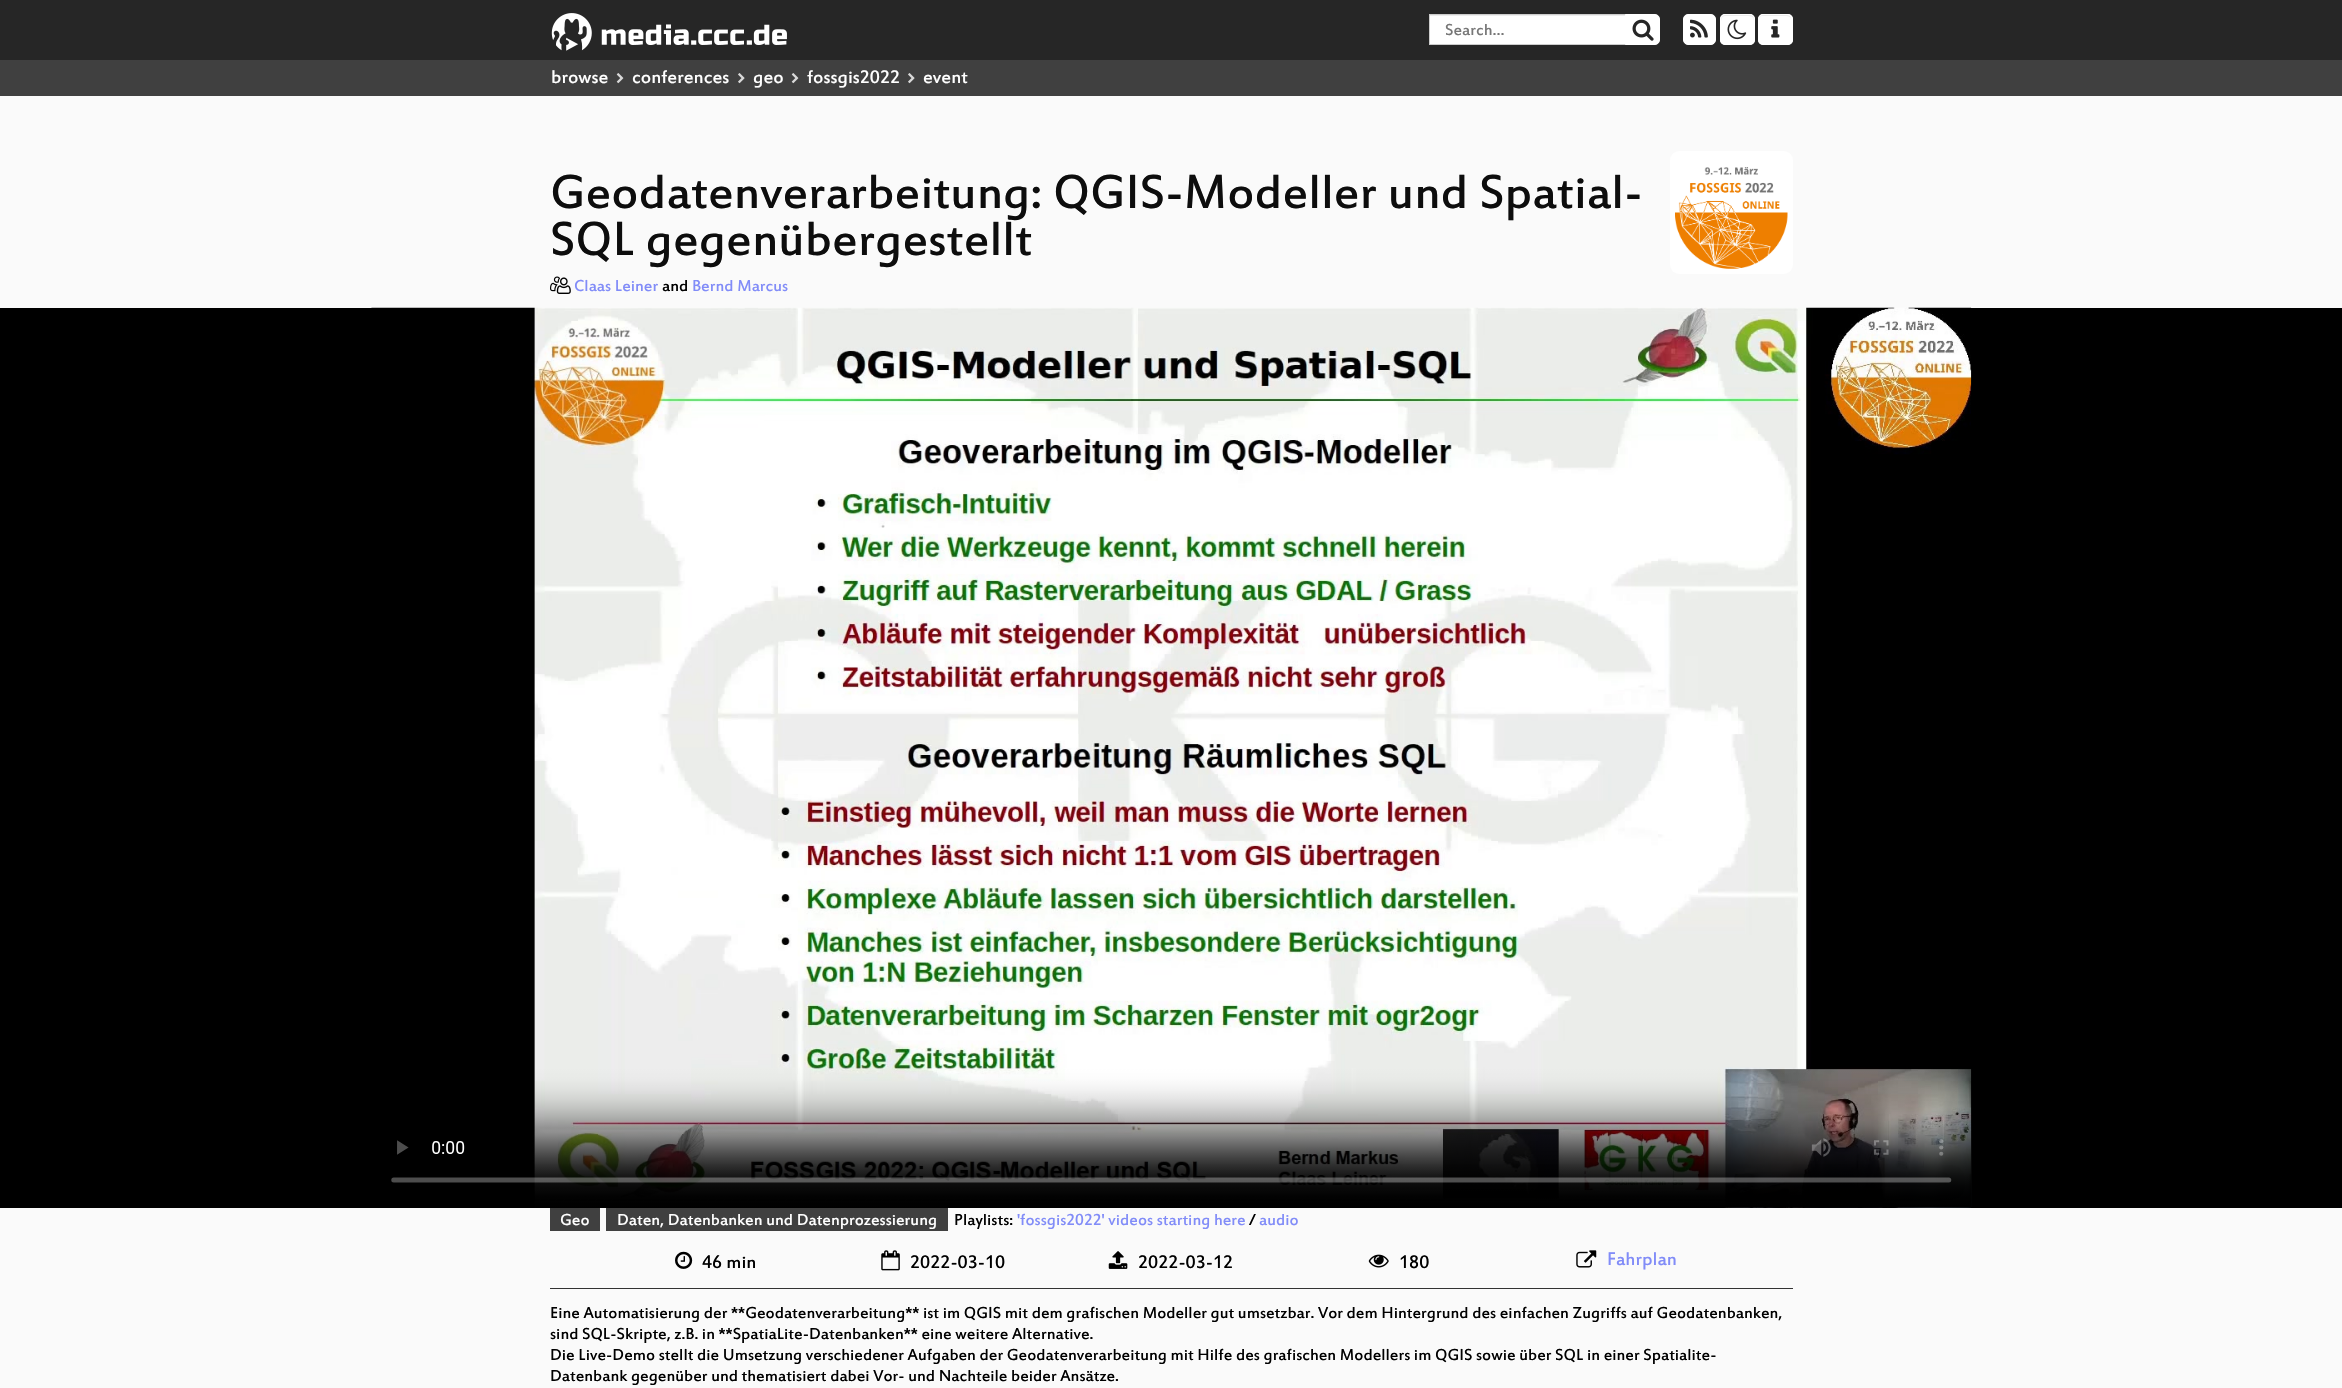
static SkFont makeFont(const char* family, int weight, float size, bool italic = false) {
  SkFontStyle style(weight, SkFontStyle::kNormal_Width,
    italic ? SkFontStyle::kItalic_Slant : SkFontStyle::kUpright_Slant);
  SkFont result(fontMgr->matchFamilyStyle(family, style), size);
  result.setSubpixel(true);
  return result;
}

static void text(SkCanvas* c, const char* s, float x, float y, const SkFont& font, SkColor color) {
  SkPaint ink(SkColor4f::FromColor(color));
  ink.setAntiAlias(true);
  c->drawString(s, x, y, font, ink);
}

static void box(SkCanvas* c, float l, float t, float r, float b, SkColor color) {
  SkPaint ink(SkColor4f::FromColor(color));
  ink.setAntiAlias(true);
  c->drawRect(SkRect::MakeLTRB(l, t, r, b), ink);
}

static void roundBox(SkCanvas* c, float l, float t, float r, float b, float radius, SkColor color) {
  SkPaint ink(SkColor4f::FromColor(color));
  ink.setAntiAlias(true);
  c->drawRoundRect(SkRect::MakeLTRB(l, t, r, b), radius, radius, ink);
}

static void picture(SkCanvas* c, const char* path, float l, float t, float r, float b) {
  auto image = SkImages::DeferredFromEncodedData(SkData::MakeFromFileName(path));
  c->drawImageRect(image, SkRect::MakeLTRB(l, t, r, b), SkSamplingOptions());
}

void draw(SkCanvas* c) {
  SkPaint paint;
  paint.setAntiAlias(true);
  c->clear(0xfffafafa);
  box(c, 0, 0, 2342, 60, 0xff262626);
  picture(c, "img_01.png", 551, 13, 787, 51);
  box(c, 1430, 16, 1625, 44, 0xffffffff);
  box(c, 1430, 15, 1625, 16, 0xffececec);
  paint.setStyle(SkPaint::kStroke_Style);
  paint.setStrokeWidth(1);
  paint.setColor(0xffcccccc);
  c->drawRect(SkRect::MakeLTRB(1429.5f, 14.5f, 1625.5f, 44.5f), paint);
  SkFont face1 = makeFont("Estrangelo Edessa", 400, 17.5f);
  text(c, "Search…", 1445, 35, face1, 0xff777777);
  paint.setStyle(SkPaint::kFill_Style);
  paint.setColor(0xffffffff);
  c->drawPath(SkPathBuilder().moveTo(1625.5f, 14.5f).lineTo(1655, 14.5f).cubicTo(1657.5f, 14.5f, 1659.5f, 16.5f, 1659.5f, 19).lineTo(1659.5f, 40).cubicTo(1659.5f, 42.5f, 1657.5f, 44.5f, 1655, 44.5f).lineTo(1625.5f, 44.5f).close().detach(), paint);
  paint.setStyle(SkPaint::kStroke_Style);
  c->drawPath(SkPathBuilder().moveTo(1625.5f, 14.5f).lineTo(1655, 14.5f).cubicTo(1657.5f, 14.5f, 1659.5f, 16.5f, 1659.5f, 19).lineTo(1659.5f, 40).cubicTo(1659.5f, 42.5f, 1657.5f, 44.5f, 1655, 44.5f).lineTo(1625.5f, 44.5f).close().detach(), paint);
  picture(c, "img_02.png", 1632, 19, 1654, 41);
  paint.setStyle(SkPaint::kFill_Style);
  c->drawRoundRect(SkRect::MakeLTRB(1683.5f, 14.5f, 1715.5f, 44.5f), 4.5f, 4.5f, paint);
  paint.setStyle(SkPaint::kStroke_Style);
  c->drawRoundRect(SkRect::MakeLTRB(1683.5f, 14.5f, 1715.5f, 44.5f), 4.5f, 4.5f, paint);
  picture(c, "img_03.png", 1690, 19, 1708, 38);
  roundBox(c, 1720, 14, 1755, 45, 5, 0xffffffff);
  paint.setStyle(SkPaint::kFill_Style);
  paint.setColor(0xffececec);
  c->drawPath(SkPathBuilder(SkPathFillType::kEvenOdd).moveTo(1725, 16).lineTo(1746, 16).cubicTo(1752.5f, 16, 1754, 17, 1754, 21).lineTo(1754, 19).cubicTo(1754, 17, 1752, 15, 1750, 15).lineTo(1725, 15).cubicTo(1723, 15, 1721, 17, 1721, 19).lineTo(1721, 24).cubicTo(1721, 21, 1721, 16, 1725, 16).close().moveTo(1721, 41).lineTo(1721, 38).close().detach(), paint);
  paint.setStyle(SkPaint::kStroke_Style);
  paint.setColor(0xffffffff);
  c->drawRoundRect(SkRect::MakeLTRB(1720.5f, 14.5f, 1754.5f, 44.5f), 4.5f, 4.5f, paint);
  picture(c, "img_04.png", 1727, 19, 1747, 40);
  roundBox(c, 1758, 14, 1793, 45, 5, 0xffffffff);
  paint.setStyle(SkPaint::kFill_Style);
  paint.setColor(0xffececec);
  c->drawPath(SkPathBuilder(SkPathFillType::kEvenOdd).moveTo(1762, 16).lineTo(1783, 16).cubicTo(1788.5f, 16, 1790.5f, 16.5f, 1791, 19).cubicTo(1791, 16.5f, 1789, 15, 1787, 15).lineTo(1763, 15).cubicTo(1761, 15, 1759, 16.5f, 1759, 19).cubicTo(1759.5f, 17, 1760, 16, 1762, 16).close().moveTo(1759, 41).lineTo(1759, 38).close().detach(), paint);
  paint.setStyle(SkPaint::kStroke_Style);
  paint.setColor(0xffffffff);
  c->drawRoundRect(SkRect::MakeLTRB(1758.5f, 14.5f, 1792.5f, 44.5f), 4.5f, 4.5f, paint);
  picture(c, "img_05.png", 1771, 19, 1780, 38);
  box(c, 0, 60, 2342, 96, 0xff404040);
  SkFont face2 = makeFont("Estrangelo Edessa", 400, 20);
  text(c, "browse", 551, 83, face2, 0xffffffff);
  picture(c, "img_06.png", 616, 73, 624, 84);
  text(c, "conferences", 632, 83, face2, 0xffffffff);
  picture(c, "img_07.png", 738, 73, 745, 84);
  text(c, "geo", 753, 83, face2, 0xffffffff);
  picture(c, "img_06.png", 791, 73, 799, 84);
  text(c, "fossgis2022", 807, 83, face2, 0xffffffff);
  picture(c, "img_07.png", 908, 73, 915, 84);
  text(c, "event", 923, 83, face2, 0xffffffff);
  SkFont face3 = makeFont("Estrangelo Edessa", 400, 52.5f);
  text(c, "Geodatenverarbeitung: QGIS-Modeller und Spatial-", 550, 208, face3, 0xff0d0d0d);
  text(c, "SQL gegenübergestellt", 550, 255, face3, 0xff0d0d0d);
  roundBox(c, 1670, 151, 1793, 274, 9, 0xffffffff);
  picture(c, "img_08.png", 1675, 167, 1788, 269);
  picture(c, "img_09.png", 550, 276, 571, 294);
  text(c, "Claas Leiner", 574, 291, face1, 0xff818cf8);
  text(c, "and", 662, 291, face1, 0xff000000);
  text(c, "Bernd Marcus", 692, 291, face1, 0xff818cf8);
  box(c, 0, 308, 2342, 1208, 0xff000000);
  picture(c, "img_10.png", 371, 307, 1972, 1208);
  box(c, 550, 1208, 600, 1231, 0xff404040);
  text(c, "Geo", 560, 1225, face1, 0xffffffff);
  box(c, 606, 1208, 948, 1231, 0xff404040);
  text(c, "Daten, Datenbanken und Datenprozessierung", 617, 1225, face1, 0xffffffff);
  text(c, "Playlists:", 954, 1225, face1, 0xff000000);
  text(c, "'fossgis2022' videos starting here", 1017, 1225, face1, 0xff818cf8);
  text(c, "/", 1249, 1225, face1, 0xff000000);
  text(c, "audio", 1259, 1225, face1, 0xff818cf8);
  box(c, 550, 1288, 1793, 1289, 0xff323232);
  picture(c, "img_11.png", 675, 1251, 693, 1269);
  text(c, "46 min", 702, 1268, face2, 0xff000000);
  picture(c, "img_12.png", 881, 1250, 900, 1271);
  text(c, "2022-03-10", 910, 1268, face2, 0xff000000);
  picture(c, "img_13.png", 1108, 1251, 1128, 1269);
  text(c, "2022-03-12", 1138, 1268, face2, 0xff000000);
  picture(c, "img_14.png", 1368, 1254, 1389, 1268);
  text(c, "180", 1399, 1268, face2, 0xff000000);
  picture(c, "img_15.png", 1576, 1250, 1597, 1268);
  text(c, "Fahrplan", 1607, 1265, face2, 0xff818cf8);
  text(c, "Eine Automatisierung der **Geodatenverarbeitung** ist im QGIS mit dem grafischen Modeller gut umsetzbar. Vor dem Hintergrund des einfachen Zugriffs auf Geodatenbanken,", 550, 1318, face1, 0xff000000);
  text(c, "sind SQL-Skripte, z.B. in **SpatiaLite-Datenbanken** eine weitere Alternative.", 550, 1339, face1, 0xff000000);
  text(c, "Die Live-Demo stellt die Umsetzung verschiedener Aufgaben der Geodatenverarbeitung mit Hilfe des grafischen Modellers im QGIS sowie über SQL in einer Spatialite-", 550, 1360, face1, 0xff000000);
  text(c, "Datenbank gegenüber und thematisiert dabei Vor- und Nachteile beider Ansätze.", 550, 1381, face1, 0xff000000);
}
